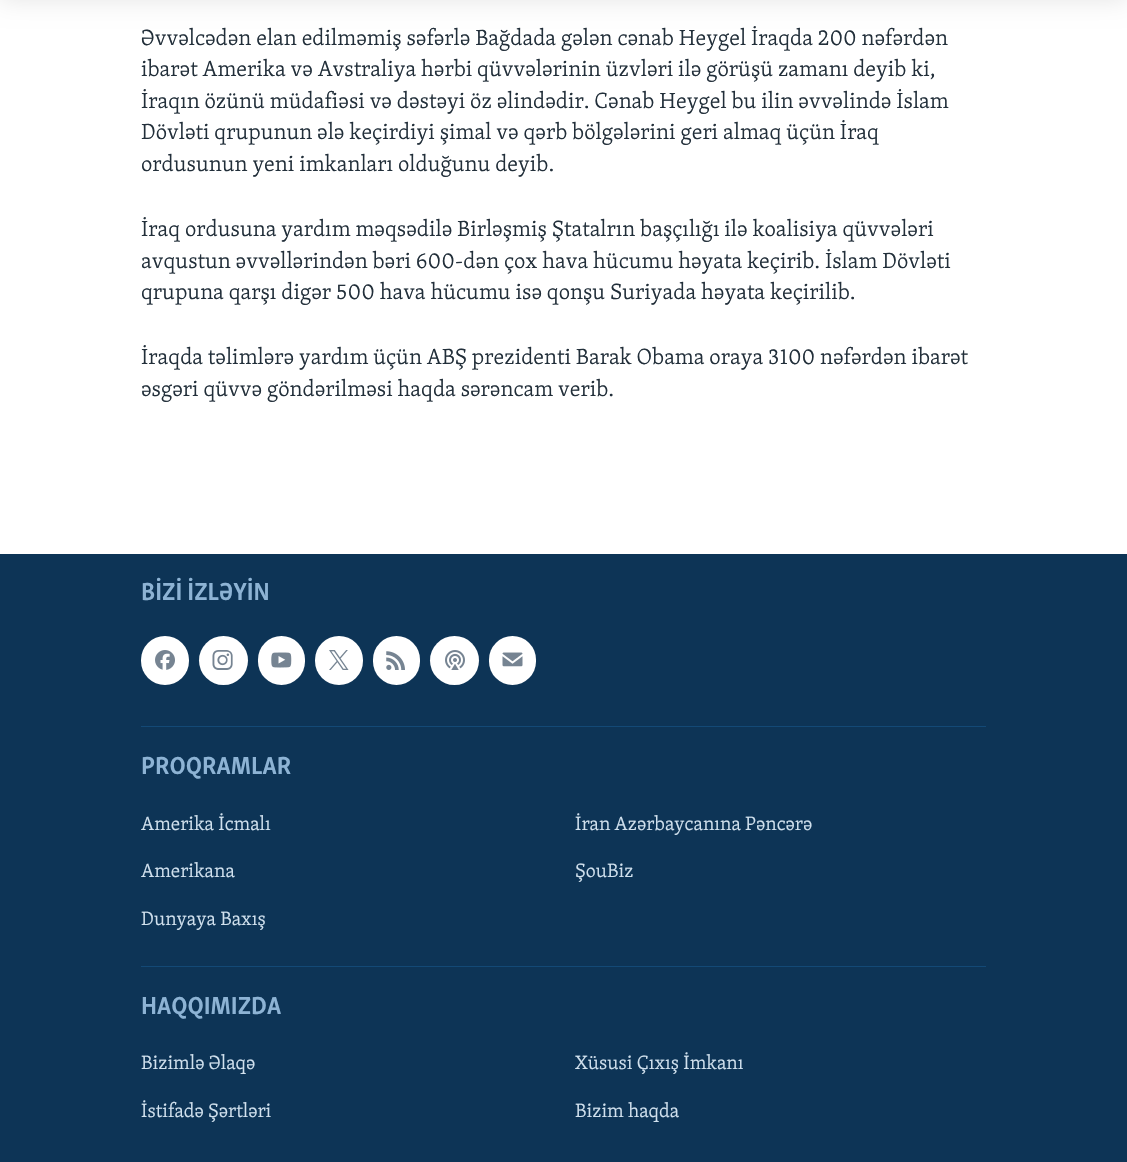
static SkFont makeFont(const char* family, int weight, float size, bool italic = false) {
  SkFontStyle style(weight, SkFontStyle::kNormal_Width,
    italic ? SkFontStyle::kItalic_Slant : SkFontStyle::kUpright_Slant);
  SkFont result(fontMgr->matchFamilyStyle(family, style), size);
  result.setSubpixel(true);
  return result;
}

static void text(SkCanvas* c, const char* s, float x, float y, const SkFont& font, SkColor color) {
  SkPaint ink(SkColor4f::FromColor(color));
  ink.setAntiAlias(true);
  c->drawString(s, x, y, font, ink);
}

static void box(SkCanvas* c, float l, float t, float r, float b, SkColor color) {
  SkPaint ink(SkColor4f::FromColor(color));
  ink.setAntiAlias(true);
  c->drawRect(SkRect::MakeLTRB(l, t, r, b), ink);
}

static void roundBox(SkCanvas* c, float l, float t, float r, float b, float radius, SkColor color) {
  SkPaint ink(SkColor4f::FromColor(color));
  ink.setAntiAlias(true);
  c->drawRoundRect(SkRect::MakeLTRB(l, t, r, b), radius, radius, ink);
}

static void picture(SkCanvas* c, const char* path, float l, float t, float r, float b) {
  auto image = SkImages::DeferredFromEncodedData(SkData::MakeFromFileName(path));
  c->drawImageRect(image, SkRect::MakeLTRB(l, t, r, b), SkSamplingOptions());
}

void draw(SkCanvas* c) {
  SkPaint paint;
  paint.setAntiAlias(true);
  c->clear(0xffffffff);
  paint.setColor(0x1a000000);
  paint.setMaskFilter(SkMaskFilter::MakeBlur(kNormal_SkBlurStyle, 12.5f));
  c->drawRect(SkRect::MakeLTRB(0, -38, 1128, 0), paint);
  paint.setMaskFilter(nullptr);
  SkFont face1 = makeFont("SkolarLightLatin", 300, 22.5f);
  text(c, "Əvvəlcədən elan edilməmiş səfərlə Bağdada gələn cənab Heygel İraqda 200 nəfərdən", 141, 45, face1, 0xff222f3a);
  text(c, "ibarət Amerika və Avstraliya hərbi qüvvələrinin üzvləri ilə görüşü zamanı deyib ki,", 141, 76, face1, 0xff222f3a);
  text(c, "İraqın özünü müdafiəsi və dəstəyi öz əlindədir. Cənab Heygel bu ilin əvvəlində İslam", 141, 108, face1, 0xff222f3a);
  text(c, "Dövləti qrupunun ələ keçirdiyi şimal və qərb bölgələrini geri almaq üçün İraq", 141, 139, face1, 0xff222f3a);
  text(c, "ordusunun yeni imkanları olduğunu deyib.", 141, 171, face1, 0xff222f3a);
  text(c, "İraq ordusuna yardım məqsədilə Birləşmiş Ştatalrın başçılığı ilə koalisiya qüvvələri", 141, 236, face1, 0xff222f3a);
  text(c, "avqustun əvvəllərindən bəri 600-dən çox hava hücumu həyata keçirib. İslam Dövləti", 141, 268, face1, 0xff222f3a);
  text(c, "qrupuna qarşı digər 500 hava hücumu isə qonşu Suriyada həyata keçirilib.", 141, 299, face1, 0xff222f3a);
  text(c, "İraqda təlimlərə yardım üçün ABŞ prezidenti Barak Obama oraya 3100 nəfərdən ibarət", 141, 364, face1, 0xff222f3a);
  text(c, "əsgəri qüvvə göndərilməsi haqda sərəncam verib.", 141, 396, face1, 0xff222f3a);
  box(c, 0, 554, 1127, 1162, 0xff0d3456);
  SkFont face2 = makeFont("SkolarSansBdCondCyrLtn", 700, 25.25f);
  text(c, "BİZİ İZLƏYİN", 141, 600, face2, 0xff8db3d4);
  roundBox(c, 141, 636, 189, 685, 24, 0xffffffff);
  picture(c, "img_01.png", 155, 650, 175, 670);
  paint.setColor(0xffffffff);
  c->drawCircle(223.5f, 660.5f, 24.5f, paint);
  picture(c, "img_02.png", 212, 650, 233, 670);
  roundBox(c, 258, 636, 305, 685, 23.5f, 0xffffffff);
  picture(c, "img_03.png", 271, 652, 292, 668);
  roundBox(c, 315, 636, 363, 685, 24, 0xffffffff);
  picture(c, "img_04.png", 329, 650, 349, 670);
  roundBox(c, 373, 636, 420, 685, 23.5f, 0xffffffff);
  picture(c, "img_05.png", 386, 651, 405, 670);
  c->drawCircle(454.5f, 660.5f, 24.5f, paint);
  picture(c, "img_06.png", 445, 650, 465, 670);
  roundBox(c, 489, 636, 536, 685, 23.5f, 0xffffffff);
  picture(c, "img_07.png", 502, 652, 523, 667);
  box(c, 141, 726, 986, 727, 0xff134976);
  text(c, "PROQRAMLAR", 141, 774, face2, 0xff8db3d4);
  SkFont face3 = makeFont("SkolarLightLatin", 300, 19.75f);
  text(c, "Amerika İcmalı", 141, 830, face3, 0xffd1e1ee);
  text(c, "İran Azərbaycanına Pəncərə", 575, 830, face3, 0xffd1e1ee);
  text(c, "Amerikana", 141, 877, face3, 0xffd1e1ee);
  text(c, "ŞouBiz", 575, 877, face3, 0xffd1e1ee);
  text(c, "Dunyaya Baxış", 141, 925, face3, 0xffd1e1ee);
  box(c, 141, 966, 986, 967, 0xff134976);
  text(c, "HAQQIMIZDA", 141, 1014, face2, 0xff8db3d4);
  text(c, "Bizimlə Əlaqə", 141, 1069, face3, 0xffd1e1ee);
  text(c, "Xüsusi Çıxış İmkanı", 575, 1069, face3, 0xffd1e1ee);
  text(c, "İstifadə Şərtləri", 141, 1117, face3, 0xffd1e1ee);
  text(c, "Bizim haqda", 575, 1117, face3, 0xffd1e1ee);
}
